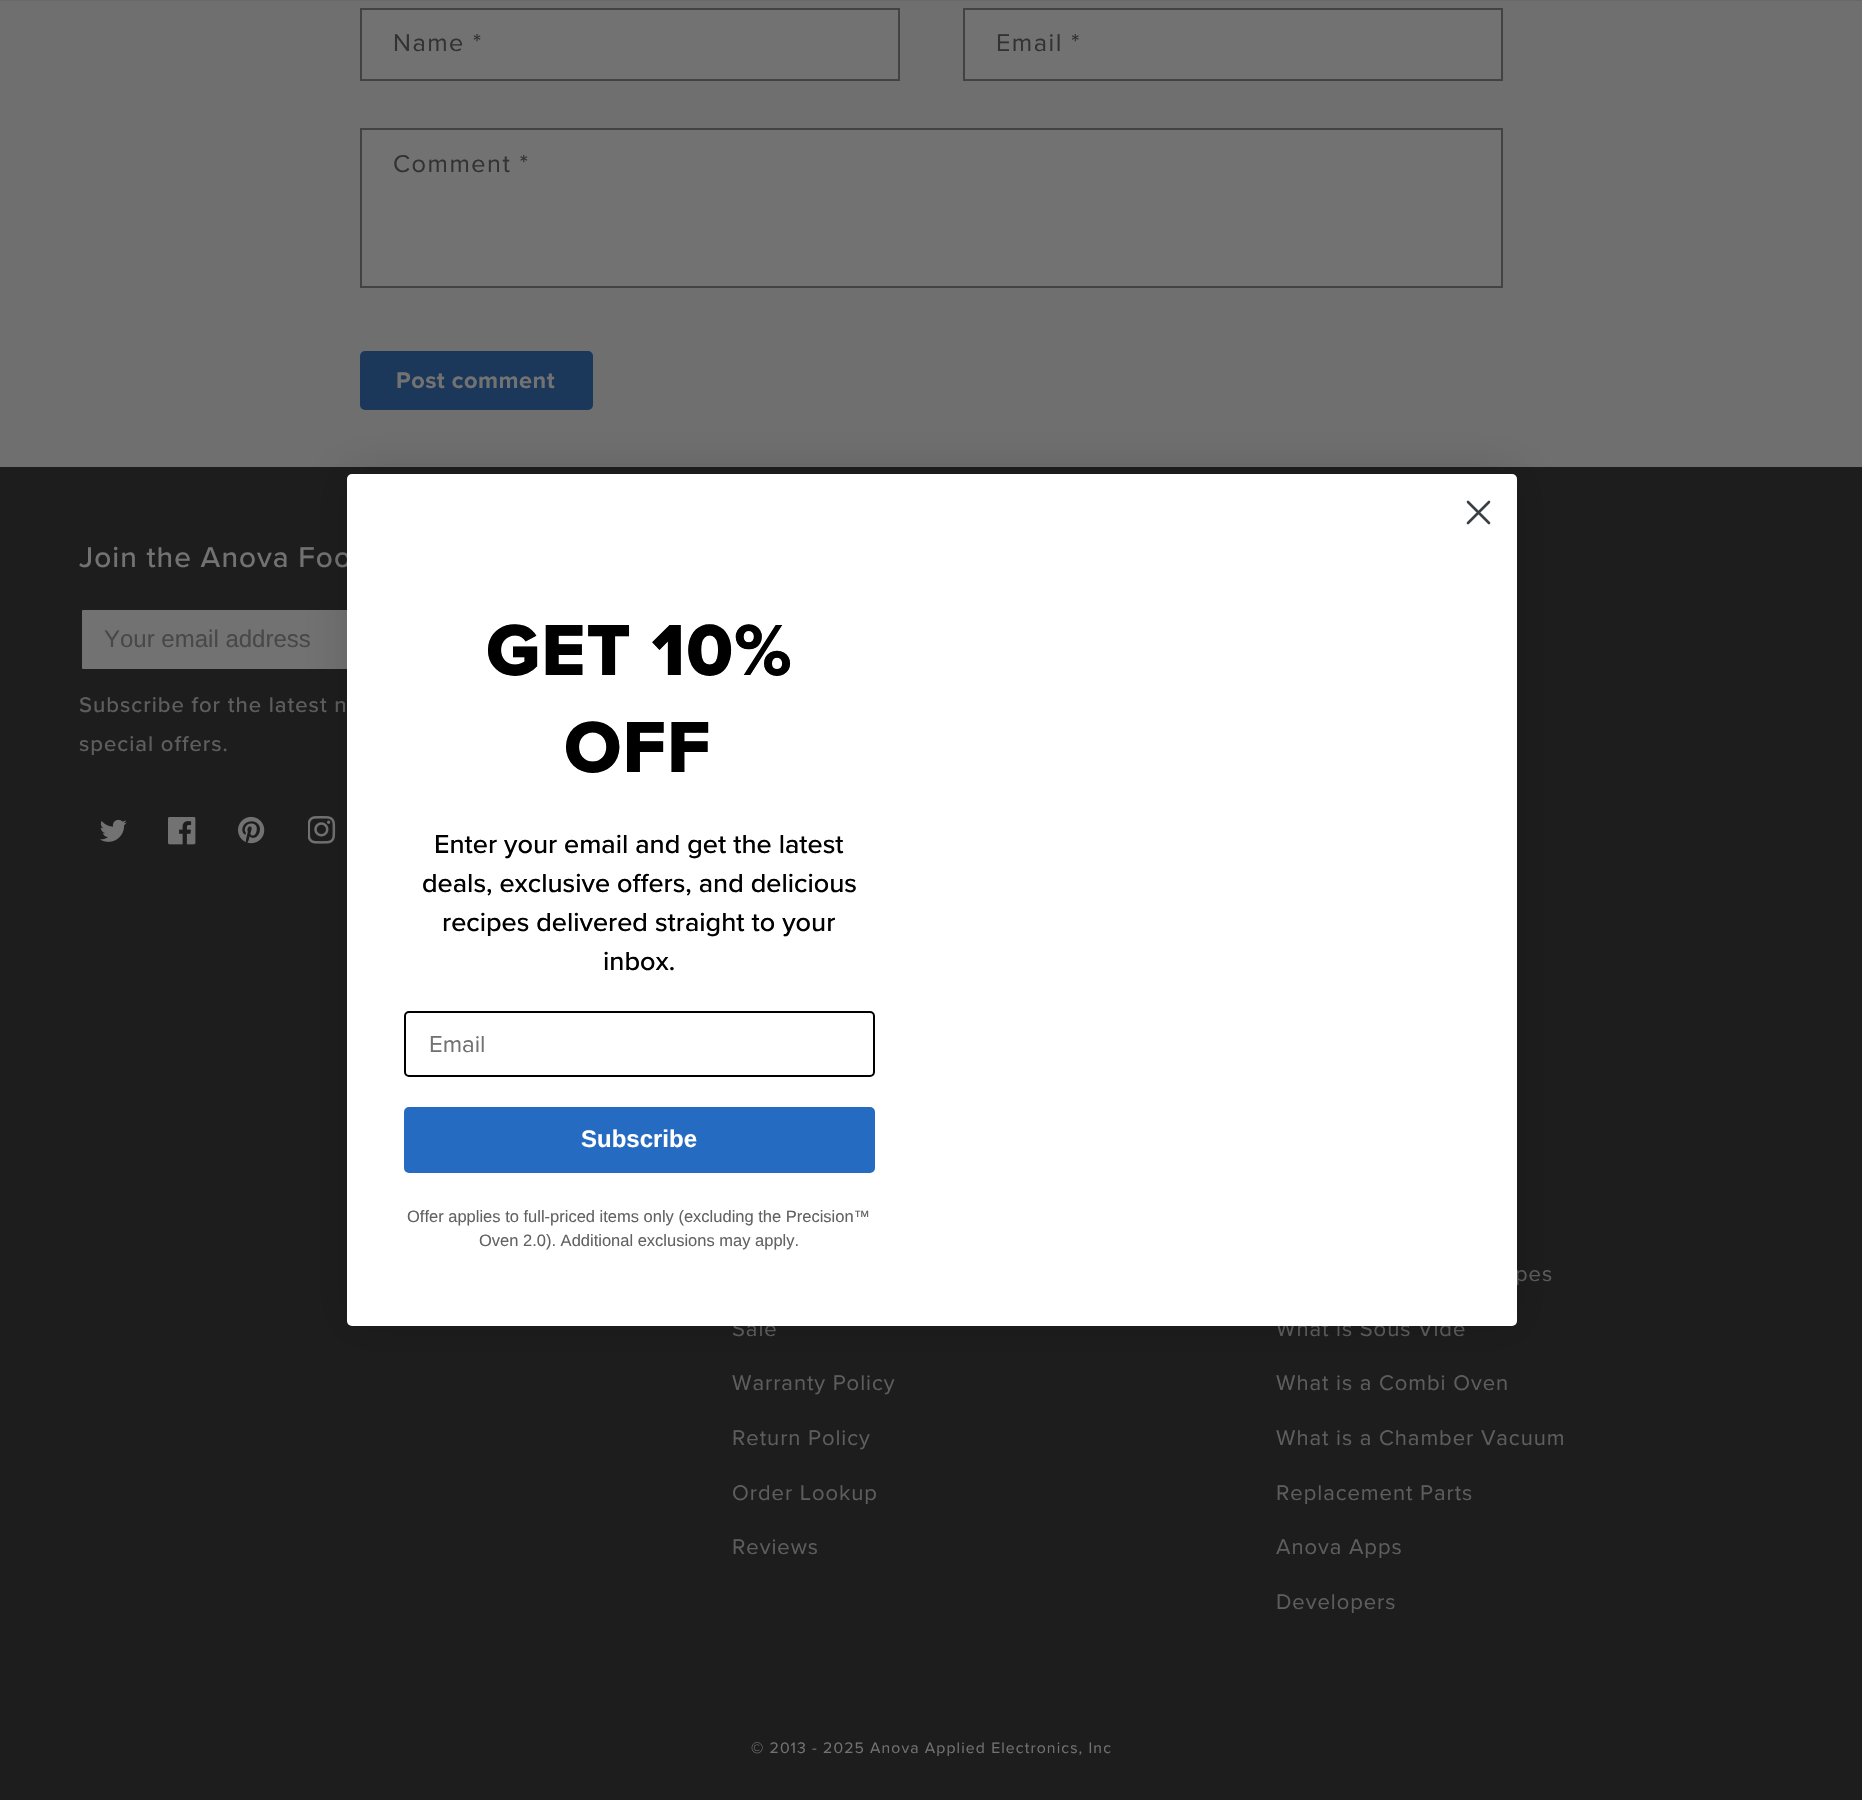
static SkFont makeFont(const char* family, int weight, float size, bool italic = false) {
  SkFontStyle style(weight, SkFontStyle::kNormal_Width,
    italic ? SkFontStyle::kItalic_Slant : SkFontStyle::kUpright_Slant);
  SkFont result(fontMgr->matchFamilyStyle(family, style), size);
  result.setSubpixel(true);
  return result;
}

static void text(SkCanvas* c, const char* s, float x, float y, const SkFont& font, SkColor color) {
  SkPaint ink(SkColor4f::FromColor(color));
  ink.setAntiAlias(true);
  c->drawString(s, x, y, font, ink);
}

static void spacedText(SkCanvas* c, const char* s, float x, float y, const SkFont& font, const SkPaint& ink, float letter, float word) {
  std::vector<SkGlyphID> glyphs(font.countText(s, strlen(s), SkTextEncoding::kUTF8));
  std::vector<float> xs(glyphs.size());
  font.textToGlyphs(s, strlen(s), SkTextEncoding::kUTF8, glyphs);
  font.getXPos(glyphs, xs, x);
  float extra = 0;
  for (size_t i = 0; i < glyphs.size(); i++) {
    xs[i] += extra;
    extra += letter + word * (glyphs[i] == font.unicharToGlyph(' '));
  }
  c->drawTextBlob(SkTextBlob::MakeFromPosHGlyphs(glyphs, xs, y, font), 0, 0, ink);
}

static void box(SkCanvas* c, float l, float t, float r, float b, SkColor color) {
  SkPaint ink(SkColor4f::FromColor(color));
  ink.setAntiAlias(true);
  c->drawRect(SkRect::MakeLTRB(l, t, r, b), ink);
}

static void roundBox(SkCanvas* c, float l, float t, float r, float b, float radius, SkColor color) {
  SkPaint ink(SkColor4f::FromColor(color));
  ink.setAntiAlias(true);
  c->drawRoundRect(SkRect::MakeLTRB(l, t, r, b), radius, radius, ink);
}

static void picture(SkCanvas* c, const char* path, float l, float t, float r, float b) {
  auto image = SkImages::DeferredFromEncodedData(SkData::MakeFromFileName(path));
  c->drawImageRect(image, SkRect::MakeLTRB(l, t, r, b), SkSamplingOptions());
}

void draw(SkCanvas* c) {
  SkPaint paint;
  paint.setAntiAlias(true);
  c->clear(0xff6f6f6f);
  box(c, 0, 0, 1862, 1, 0xff686868);
  box(c, 362, 9, 899, 80, 0xff727272);
  paint.setStyle(SkPaint::kStroke_Style);
  paint.setStrokeWidth(2);
  paint.setColor(0x8c1d1d1d);
  c->drawRect(SkRect::MakeLTRB(361, 9, 899, 80), paint);
  SkFont face1 = makeFont("Proxima Nova", 400, 25.25f);
  paint.setStyle(SkPaint::kFill_Style);
  paint.setColor(0xff323232);
  spacedText(c, "Name *", 393, 51, face1, paint, 1.5f, 0);
  box(c, 965, 9, 1502, 80, 0xff727272);
  paint.setStyle(SkPaint::kStroke_Style);
  paint.setColor(0x8c1d1d1d);
  c->drawRect(SkRect::MakeLTRB(964, 9, 1502, 80), paint);
  paint.setStyle(SkPaint::kFill_Style);
  paint.setColor(0xff323232);
  spacedText(c, "Email *", 996, 51, face1, paint, 1.5f, 0);
  box(c, 362, 129, 1502, 287, 0xff727272);
  paint.setStyle(SkPaint::kStroke_Style);
  paint.setColor(0x8c1d1d1d);
  c->drawRect(SkRect::MakeLTRB(361, 129, 1502, 287), paint);
  paint.setStyle(SkPaint::kFill_Style);
  paint.setColor(0xff323232);
  spacedText(c, "Comment *", 393, 172, face1, paint, 1.5f, 0);
  roundBox(c, 360, 351, 593, 410, 5, 0xff1b3759);
  SkFont face2 = makeFont("Proxima Nova", 700, 23.5f);
  paint.setColor(0xff727272);
  spacedText(c, "Post comment", 396, 388, face2, paint, 0.5f, 0);
  box(c, 0, 467, 1862, 1800, 0xff1d1d1d);
  SkFont face3 = makeFont("Proxima Nova", 500, 29.75f);
  spacedText(c, "Join the Anova Foo", 79, 567, face3, paint, 1, 0);
  c->drawRoundRect(SkRect::MakeLTRB(81, 609, 457, 670), 2, 2, paint);
  paint.setStyle(SkPaint::kStroke_Style);
  paint.setColor(0xff1d1d1d);
  c->drawRoundRect(SkRect::MakeLTRB(81, 609, 457, 670), 2, 2, paint);
  SkFont face4 = makeFont("Liberation Sans", 400, 24);
  text(c, "Your email address", 104, 647, face4, 0xff474848);
  SkFont face5 = makeFont("Proxima Nova", 500, 22);
  paint.setStyle(SkPaint::kFill_Style);
  paint.setColor(0xff5d5d5d);
  spacedText(c, "Subscribe for the latest n", 79, 712, face5, paint, 1, 0);
  spacedText(c, "special offers.", 79, 751, face5, paint, 1, 0);
  picture(c, "img_01.png", 100, 819, 127, 842);
  picture(c, "img_02.png", 168, 817, 196, 845);
  picture(c, "img_03.png", 238, 816, 265, 844);
  picture(c, "img_04.png", 308, 816, 336, 844);
  SkFont face6 = makeFont("Proxima Nova", 400, 22);
  spacedText(c, "Sale", 732, 1336, face6, paint, 0.95f, 0);
  spacedText(c, "Warranty Policy", 732, 1390, face6, paint, 0.95f, 0);
  spacedText(c, "Return Policy", 732, 1445, face6, paint, 0.95f, 0);
  spacedText(c, "Order Lookup", 732, 1500, face6, paint, 0.95f, 0);
  spacedText(c, "Reviews", 732, 1554, face6, paint, 0.95f, 0);
  spacedText(c, "pes", 1515, 1281, face6, paint, 0.95f, 0);
  spacedText(c, "What is Sous Vide", 1276, 1336, face6, paint, 0.95f, 0);
  spacedText(c, "What is a Combi Oven", 1276, 1390, face6, paint, 0.95f, 0);
  spacedText(c, "What is a Chamber Vacuum", 1276, 1445, face6, paint, 0.95f, 0);
  spacedText(c, "Replacement Parts", 1276, 1500, face6, paint, 0.95f, 0);
  spacedText(c, "Anova Apps", 1276, 1554, face6, paint, 0.95f, 0);
  spacedText(c, "Developers", 1276, 1609, face6, paint, 0.95f, 0);
  SkFont face7 = makeFont("Proxima Nova", 400, 15.75f);
  paint.setColor(0xff727272);
  spacedText(c, "© 2013 - 2025 Anova Applied Electronics, Inc", 751, 1753, face7, paint, 1.1f, 0);
  paint.setColor(0x26000000);
  paint.setMaskFilter(SkMaskFilter::MakeBlur(kNormal_SkBlurStyle, 22.5f));
  c->drawRoundRect(SkRect::MakeLTRB(347, 474, 1517, 1326), 5, 5, paint);
  paint.setMaskFilter(nullptr);
  roundBox(c, 347, 474, 1517, 1326, 5, 0xffffffff);
  paint.setStyle(SkPaint::kStroke_Style);
  paint.setStrokeWidth(2.6f);
  paint.setStrokeCap(SkPaint::kRound_Cap);
  paint.setStrokeJoin(SkPaint::kRound_Join);
  paint.setColor(0xff373f47);
  c->drawPath(SkPathBuilder().moveTo(1468, 502).lineTo(1489, 523).moveTo(1468, 523).lineTo(1489, 502).close().detach(), paint);
  SkFont face8 = makeFont("Proxima Nova", 800, 75);
  paint.setStyle(SkPaint::kFill_Style);
  paint.setColor(0xff000000);
  spacedText(c, "GET 10%", 486, 675, face8, paint, 1, 0);
  spacedText(c, "OFF", 564, 772, face8, paint, 1, 0);
  SkFont face9 = makeFont("Proxima Nova", 500, 27);
  text(c, "Enter your email and get the latest", 434, 853, face9, 0xff000000);
  text(c, "deals, exclusive offers, and delicious", 422, 892, face9, 0xff000000);
  text(c, "recipes delivered straight to your", 442, 931, face9, 0xff000000);
  text(c, "inbox.", 603, 970, face9, 0xff000000);
  paint.setStyle(SkPaint::kStroke_Style);
  paint.setStrokeWidth(2);
  paint.setStrokeCap(SkPaint::kButt_Cap);
  paint.setStrokeJoin(SkPaint::kMiter_Join);
  c->drawRoundRect(SkRect::MakeLTRB(405, 1012, 874, 1076), 4, 4, paint);
  SkFont face10 = makeFont("Proxima Nova", 400, 24);
  text(c, "Email", 429, 1052, face10, 0xff727272);
  roundBox(c, 404, 1107, 875, 1173, 5, 0xff256bc1);
  SkFont face11 = makeFont("Liberation Sans", 700, 24);
  text(c, "Subscribe", 581, 1147, face11, 0xffffffff);
  SkFont face12 = makeFont("Liberation Sans", 400, 16.5f);
  text(c, "Offer applies to full-priced items only (excluding the Precision™", 407, 1222, face12, 0xff636262);
  text(c, "Oven 2.0). Additional exclusions may apply.", 479, 1246, face12, 0xff636262);
}
